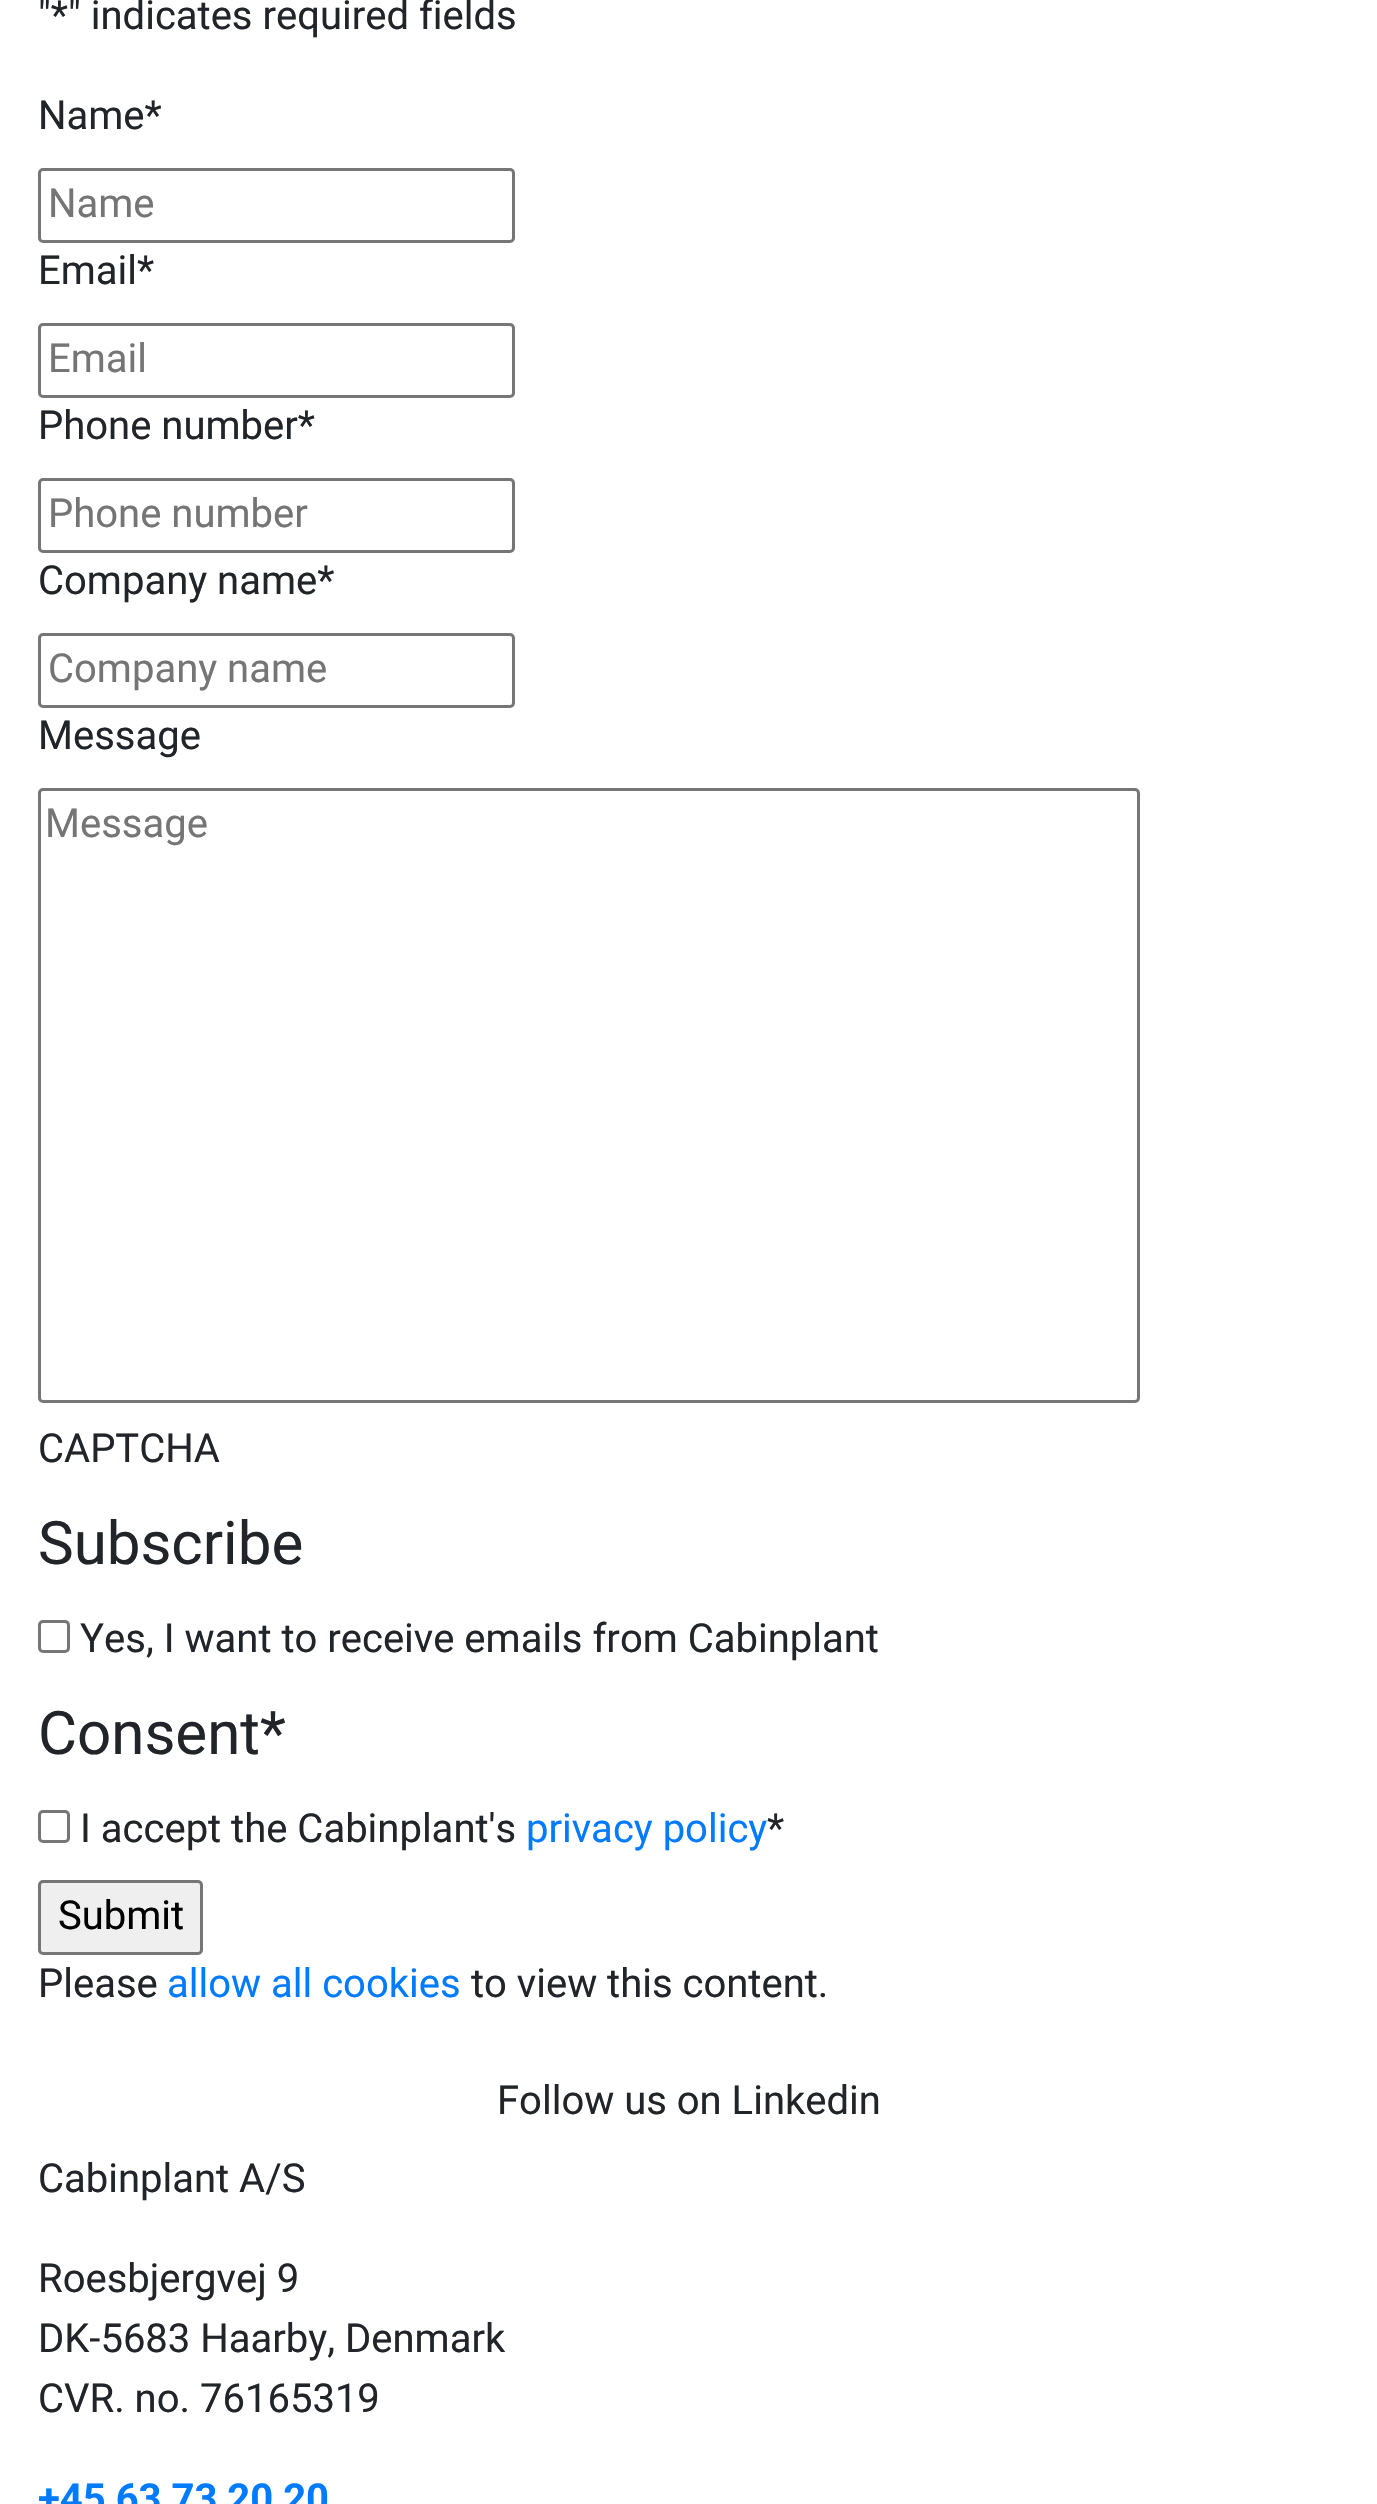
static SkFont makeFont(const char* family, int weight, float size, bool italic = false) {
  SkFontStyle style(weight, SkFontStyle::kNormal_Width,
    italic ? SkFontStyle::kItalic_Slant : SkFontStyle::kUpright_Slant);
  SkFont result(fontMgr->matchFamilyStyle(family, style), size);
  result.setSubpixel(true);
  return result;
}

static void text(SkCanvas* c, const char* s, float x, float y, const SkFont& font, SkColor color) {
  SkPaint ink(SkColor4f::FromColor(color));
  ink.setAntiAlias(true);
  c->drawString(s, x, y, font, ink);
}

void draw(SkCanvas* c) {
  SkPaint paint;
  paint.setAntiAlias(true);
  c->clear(0xffffffff);
  SkFont face1 = makeFont("Roboto", 400, 40);
  text(c, "\"*\" indicates required fields", 38, 29, face1, 0xff212529);
  text(c, "Name*", 38, 129, face1, 0xff212529);
  paint.setStyle(SkPaint::kStroke_Style);
  paint.setStrokeWidth(3);
  paint.setColor(0xff767676);
  c->drawRoundRect(SkRect::MakeLTRB(39.5f, 169.5f, 513.5f, 241.5f), 3.5f, 3.5f, paint);
  text(c, "Name", 48, 217, face1, 0xff757575);
  text(c, "Email*", 38, 284, face1, 0xff212529);
  c->drawRoundRect(SkRect::MakeLTRB(39.5f, 324.5f, 513.5f, 396.5f), 3.5f, 3.5f, paint);
  text(c, "Email", 48, 372, face1, 0xff757575);
  text(c, "Phone number*", 38, 439, face1, 0xff212529);
  c->drawRoundRect(SkRect::MakeLTRB(39.5f, 479.5f, 513.5f, 551.5f), 3.5f, 3.5f, paint);
  text(c, "Phone number", 48, 527, face1, 0xff757575);
  text(c, "Company name*", 38, 594, face1, 0xff212529);
  c->drawRoundRect(SkRect::MakeLTRB(39.5f, 634.5f, 513.5f, 706.5f), 3.5f, 3.5f, paint);
  text(c, "Company name", 48, 682, face1, 0xff757575);
  text(c, "Message", 38, 749, face1, 0xff212529);
  c->drawRoundRect(SkRect::MakeLTRB(39.5f, 789.5f, 1138.5f, 1401.5f), 3.5f, 3.5f, paint);
  text(c, "Message", 45, 837, face1, 0xff757575);
  text(c, "CAPTCHA", 38, 1462, face1, 0xff212529);
  SkFont face2 = makeFont("Roboto", 400, 60);
  text(c, "Subscribe", 38, 1564, face2, 0xff212529);
  c->drawRoundRect(SkRect::MakeLTRB(39.5f, 1621.5f, 68.5f, 1651.5f), 3.5f, 3.5f, paint);
  text(c, "Yes, I want to receive emails from Cabinplant", 80, 1652, face1, 0xff212529);
  text(c, "Consent*", 38, 1754, face2, 0xff212529);
  c->drawRoundRect(SkRect::MakeLTRB(39.5f, 1811.5f, 68.5f, 1841.5f), 3.5f, 3.5f, paint);
  text(c, "I accept the Cabinplant's", 80, 1842, face1, 0xff212529);
  text(c, "privacy policy", 526, 1842, face1, 0xff007bff);
  text(c, "*", 767, 1842, face1, 0xff212529);
  paint.setStyle(SkPaint::kFill_Style);
  paint.setColor(0xffefefef);
  c->drawRoundRect(SkRect::MakeLTRB(39.5f, 1881.5f, 201.5f, 1953.5f), 3.5f, 3.5f, paint);
  paint.setStyle(SkPaint::kStroke_Style);
  paint.setColor(0xff767676);
  c->drawRoundRect(SkRect::MakeLTRB(39.5f, 1881.5f, 201.5f, 1953.5f), 3.5f, 3.5f, paint);
  text(c, "Submit", 58, 1929, face1, 0xff000000);
  text(c, "Please", 38, 1997, face1, 0xff212529);
  text(c, "allow all cookies", 167, 1997, face1, 0xff007bff);
  text(c, "to view this content.", 471, 1997, face1, 0xff212529);
  text(c, "Follow us on Linkedin", 497, 2114, face1, 0xff212529);
  text(c, "Cabinplant A/S", 38, 2192, face1, 0xff212529);
  text(c, "Roesbjergvej 9", 38, 2292, face1, 0xff212529);
  text(c, "DK-5683 Haarby, Denmark", 38, 2352, face1, 0xff212529);
  text(c, "CVR. no. 76165319", 38, 2412, face1, 0xff212529);
  SkFont face3 = makeFont("Roboto", 700, 40);
  text(c, "+45 63 73 20 20", 38, 2512, face3, 0xff007bff);
}
